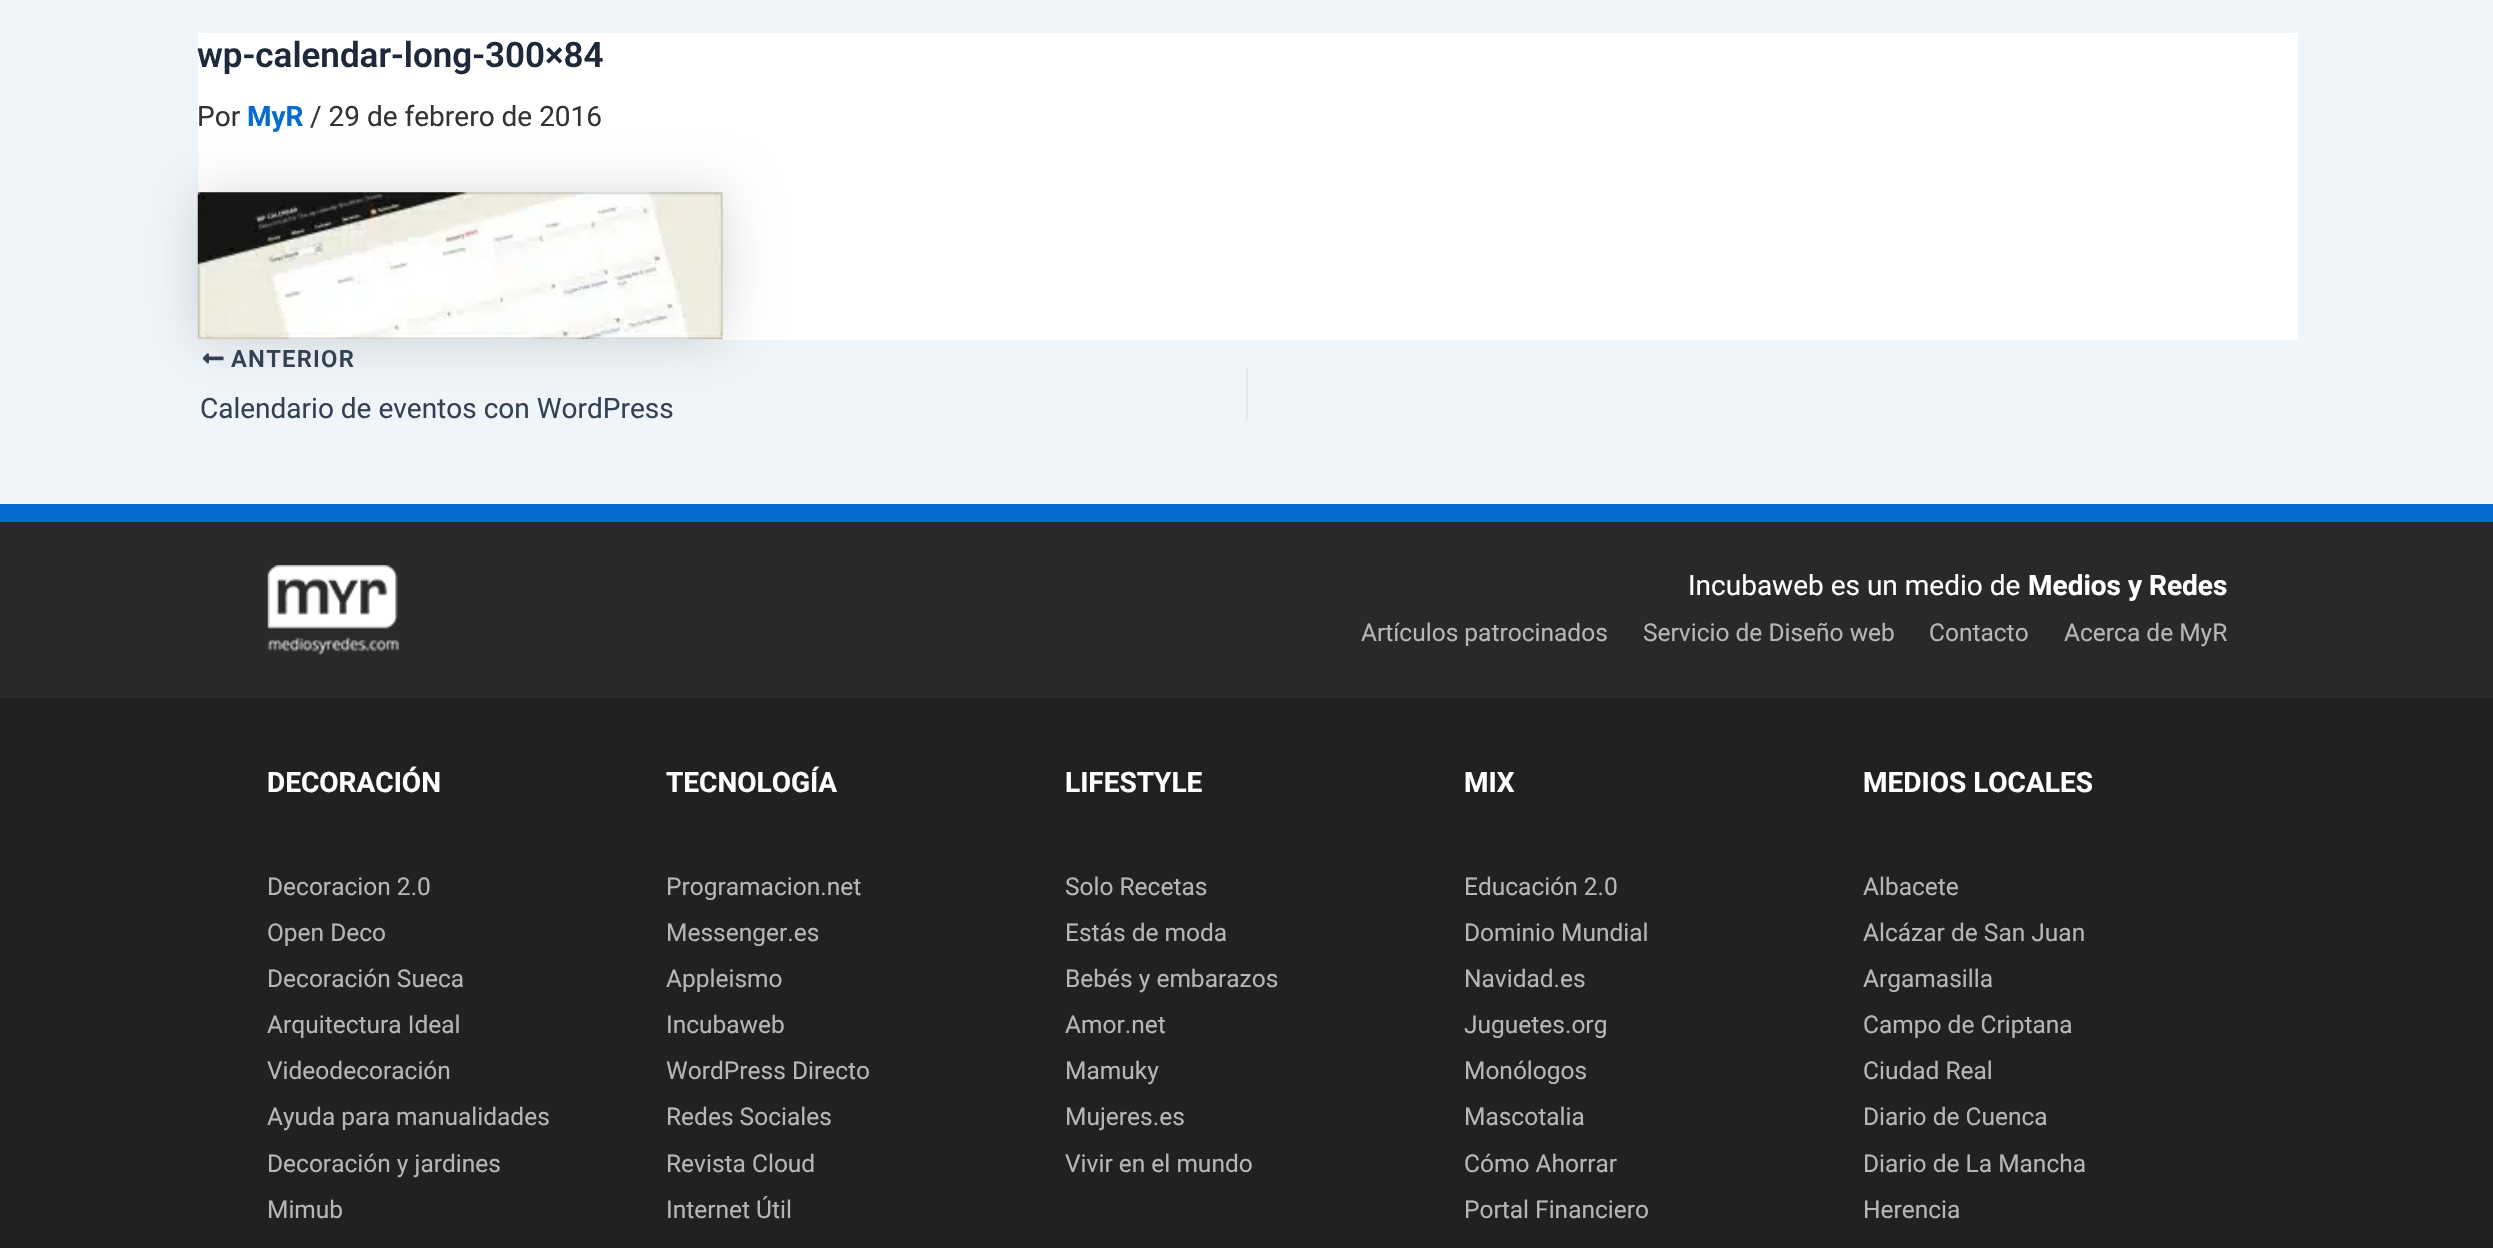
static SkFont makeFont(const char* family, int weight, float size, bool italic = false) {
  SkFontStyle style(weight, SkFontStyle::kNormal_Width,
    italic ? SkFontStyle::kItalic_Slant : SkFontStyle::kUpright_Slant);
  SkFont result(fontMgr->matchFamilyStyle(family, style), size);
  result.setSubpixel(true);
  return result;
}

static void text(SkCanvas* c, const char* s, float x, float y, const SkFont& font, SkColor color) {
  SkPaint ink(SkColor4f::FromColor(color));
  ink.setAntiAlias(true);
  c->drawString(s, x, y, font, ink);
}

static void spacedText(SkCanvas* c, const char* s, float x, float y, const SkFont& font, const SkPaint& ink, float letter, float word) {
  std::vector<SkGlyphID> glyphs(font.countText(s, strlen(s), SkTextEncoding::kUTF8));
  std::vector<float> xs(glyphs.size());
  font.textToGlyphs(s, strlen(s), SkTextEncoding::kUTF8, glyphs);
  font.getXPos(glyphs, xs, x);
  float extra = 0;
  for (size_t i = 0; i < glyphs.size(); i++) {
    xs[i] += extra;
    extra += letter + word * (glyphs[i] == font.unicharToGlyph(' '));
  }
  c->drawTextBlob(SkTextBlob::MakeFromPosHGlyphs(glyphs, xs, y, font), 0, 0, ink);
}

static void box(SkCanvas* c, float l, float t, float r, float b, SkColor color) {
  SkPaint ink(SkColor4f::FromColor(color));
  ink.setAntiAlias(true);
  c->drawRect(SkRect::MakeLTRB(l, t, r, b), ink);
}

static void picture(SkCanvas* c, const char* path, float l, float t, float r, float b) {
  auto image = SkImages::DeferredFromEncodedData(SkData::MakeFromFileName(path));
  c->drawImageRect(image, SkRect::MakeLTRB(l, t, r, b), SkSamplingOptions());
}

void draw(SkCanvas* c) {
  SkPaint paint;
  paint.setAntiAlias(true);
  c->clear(0xfff0f5fa);
  box(c, 198, 33, 2298, 340, 0xffffffff);
  SkFont face1 = makeFont("Roboto", 600, 35);
  text(c, "wp-calendar-long-300×84", 197, 67, face1, 0xff1e293b);
  SkFont face2 = makeFont("Roboto", 400, 28);
  text(c, "Por", 197, 126, face2, 0xff333333);
  SkFont face3 = makeFont("Roboto", 700, 28);
  text(c, "MyR", 247, 126, face3, 0xff046bd2);
  text(c, "/ 29 de febrero de 2016", 310, 126, face2, 0xff333333);
  paint.setColor(0x26000000);
  paint.setMaskFilter(SkMaskFilter::MakeBlur(kNormal_SkBlurStyle, 26));
  c->drawRect(SkRect::MakeLTRB(198, 193, 723, 340), paint);
  paint.setMaskFilter(nullptr);
  picture(c, "img_01.png", 197, 192, 723, 340);
  picture(c, "img_02.png", 202, 353, 224, 364);
  SkFont face4 = makeFont("Roboto", 600, 23.75f);
  paint.setColor(0xff334155);
  spacedText(c, "ANTERIOR", 231, 367, face4, paint, 1.25f, 0);
  text(c, "Calendario de eventos con WordPress", 200, 418, face2, 0xff334155);
  box(c, 1246, 368, 1248, 420, 0xffe1e8ed);
  box(c, 0, 522, 2493, 698, 0xff292929);
  box(c, 0, 504, 2493, 522, 0xff046bd2);
  picture(c, "img_03.png", 267, 565, 399, 655);
  text(c, "Incubaweb es un medio de", 1688, 595, face2, 0xffffffff);
  text(c, "Medios y Redes", 2028, 595, face3, 0xffffffff);
  SkFont face5 = makeFont("Roboto", 400, 24.5f);
  text(c, "Artículos patrocinados", 1361, 641, face5, 0xffb6b6b6);
  text(c, "Servicio de Diseño web", 1643, 641, face5, 0xffb6b6b6);
  text(c, "Contacto", 1929, 641, face5, 0xffb6b6b6);
  text(c, "Acerca de MyR", 2064, 641, face5, 0xffb6b6b6);
  box(c, 0, 698, 2493, 1248, 0xff212121);
  text(c, "DECORACIÓN", 267, 792, face3, 0xffffffff);
  text(c, "Decoracion 2.0", 267, 895, face5, 0xffb6b6b6);
  text(c, "Open Deco", 267, 941, face5, 0xffb6b6b6);
  text(c, "Decoración Sueca", 267, 987, face5, 0xffb6b6b6);
  text(c, "Arquitectura Ideal", 267, 1033, face5, 0xffb6b6b6);
  text(c, "Videodecoración", 267, 1079, face5, 0xffb6b6b6);
  text(c, "Ayuda para manualidades", 267, 1125, face5, 0xffb6b6b6);
  text(c, "Decoración y jardines", 267, 1172, face5, 0xffb6b6b6);
  text(c, "Mimub", 267, 1218, face5, 0xffb6b6b6);
  text(c, "TECNOLOGÍA", 666, 792, face3, 0xffffffff);
  text(c, "Programacion.net", 666, 895, face5, 0xffb6b6b6);
  text(c, "Messenger.es", 666, 941, face5, 0xffb6b6b6);
  text(c, "Appleismo", 666, 987, face5, 0xffb6b6b6);
  text(c, "Incubaweb", 666, 1033, face5, 0xffb6b6b6);
  text(c, "WordPress Directo", 666, 1079, face5, 0xffb6b6b6);
  text(c, "Redes Sociales", 666, 1125, face5, 0xffb6b6b6);
  text(c, "Revista Cloud", 666, 1172, face5, 0xffb6b6b6);
  text(c, "Internet Útil", 666, 1218, face5, 0xffb6b6b6);
  text(c, "LIFESTYLE", 1065, 792, face3, 0xffffffff);
  text(c, "Solo Recetas", 1065, 895, face5, 0xffb6b6b6);
  text(c, "Estás de moda", 1065, 941, face5, 0xffb6b6b6);
  text(c, "Bebés y embarazos", 1065, 987, face5, 0xffb6b6b6);
  text(c, "Amor.net", 1065, 1033, face5, 0xffb6b6b6);
  text(c, "Mamuky", 1065, 1079, face5, 0xffb6b6b6);
  text(c, "Mujeres.es", 1065, 1125, face5, 0xffb6b6b6);
  text(c, "Vivir en el mundo", 1065, 1172, face5, 0xffb6b6b6);
  text(c, "MIX", 1464, 792, face3, 0xffffffff);
  text(c, "Educación 2.0", 1464, 895, face5, 0xffb6b6b6);
  text(c, "Dominio Mundial", 1464, 941, face5, 0xffb6b6b6);
  text(c, "Navidad.es", 1464, 987, face5, 0xffb6b6b6);
  text(c, "Juguetes.org", 1464, 1033, face5, 0xffb6b6b6);
  text(c, "Monólogos", 1464, 1079, face5, 0xffb6b6b6);
  text(c, "Mascotalia", 1464, 1125, face5, 0xffb6b6b6);
  text(c, "Cómo Ahorrar", 1464, 1172, face5, 0xffb6b6b6);
  text(c, "Portal Financiero", 1464, 1218, face5, 0xffb6b6b6);
  text(c, "MEDIOS LOCALES", 1863, 792, face3, 0xffffffff);
  text(c, "Albacete", 1863, 895, face5, 0xffb6b6b6);
  text(c, "Alcázar de San Juan", 1863, 941, face5, 0xffb6b6b6);
  text(c, "Argamasilla", 1863, 987, face5, 0xffb6b6b6);
  text(c, "Campo de Criptana", 1863, 1033, face5, 0xffb6b6b6);
  text(c, "Ciudad Real", 1863, 1079, face5, 0xffb6b6b6);
  text(c, "Diario de Cuenca", 1863, 1125, face5, 0xffb6b6b6);
  text(c, "Diario de La Mancha", 1863, 1172, face5, 0xffb6b6b6);
  text(c, "Herencia", 1863, 1218, face5, 0xffb6b6b6);
}
